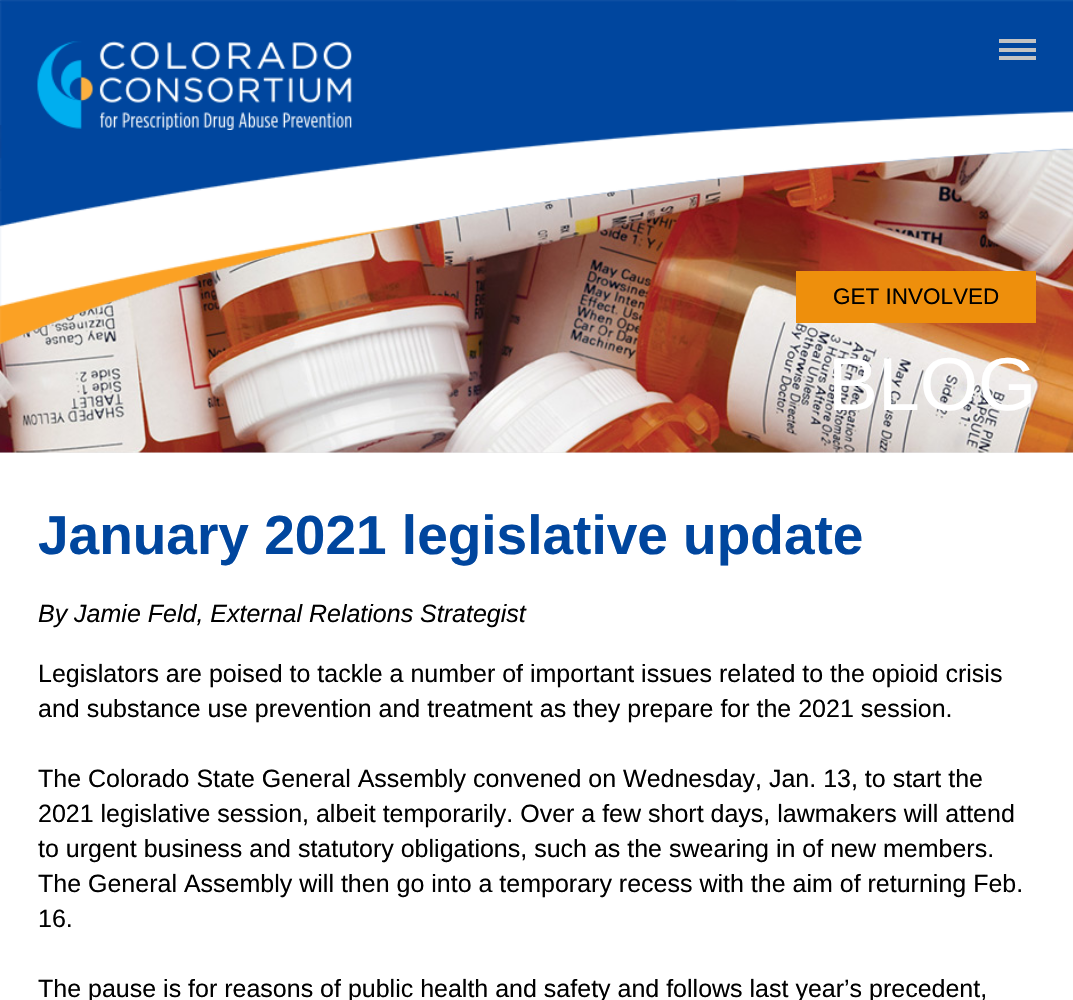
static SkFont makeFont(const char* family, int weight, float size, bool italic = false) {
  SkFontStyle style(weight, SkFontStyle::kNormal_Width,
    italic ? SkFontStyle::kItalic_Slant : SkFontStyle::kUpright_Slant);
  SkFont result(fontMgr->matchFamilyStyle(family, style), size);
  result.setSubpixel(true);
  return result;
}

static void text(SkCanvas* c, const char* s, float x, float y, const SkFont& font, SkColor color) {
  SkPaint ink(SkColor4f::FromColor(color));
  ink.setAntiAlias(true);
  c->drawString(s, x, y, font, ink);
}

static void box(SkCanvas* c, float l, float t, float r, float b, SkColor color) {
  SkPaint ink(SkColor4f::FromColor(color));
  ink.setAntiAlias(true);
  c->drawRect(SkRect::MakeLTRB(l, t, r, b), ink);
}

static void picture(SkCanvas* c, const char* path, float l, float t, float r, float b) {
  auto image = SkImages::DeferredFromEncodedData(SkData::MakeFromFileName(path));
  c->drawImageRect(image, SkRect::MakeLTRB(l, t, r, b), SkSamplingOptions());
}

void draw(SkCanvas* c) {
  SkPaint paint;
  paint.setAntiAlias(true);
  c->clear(0xffffffff);
  box(c, 0, 452, 1073, 453, 0xffe8e8e8);
  picture(c, "img_03.png", 0, 125, 1073, 453);
  picture(c, "img_02.png", 0, 0, 1073, 344);
  picture(c, "img_01.png", 37, 41, 352, 130);
  box(c, 999, 39, 1036, 43, 0xffc3c3c3);
  box(c, 999, 48, 1036, 52, 0xffc3c3c3);
  box(c, 999, 56, 1036, 60, 0xffc3c3c3);
  box(c, 796, 271, 1036, 323, 0xffee8f0c);
  SkFont face1 = makeFont("Liberation Sans", 400, 22.5f);
  text(c, "GET INVOLVED", 833, 304, face1, 0xff000000);
  SkFont face2 = makeFont("Liberation Sans", 400, 75);
  text(c, "BLOG", 828, 410, face2, 0xffffffff);
  SkFont face3 = makeFont("Liberation Sans", 700, 55);
  text(c, "January 2021 legislative update", 38, 554, face3, 0xff00469e);
  SkFont face4 = makeFont("Liberation Sans", 400, 25, true);
  text(c, "By Jamie Feld, External Relations Strategist", 38, 622, face4, 0xff000000);
  SkFont face5 = makeFont("Liberation Sans", 400, 25);
  text(c, "Legislators are poised to tackle a number of important issues related to the opioid crisis", 38, 682, face5, 0xff000000);
  text(c, "and substance use prevention and treatment as they prepare for the 2021 session.", 38, 717, face5, 0xff000000);
  text(c, "The Colorado State General Assembly convened on Wednesday, Jan. 13, to start the", 38, 787, face5, 0xff000000);
  text(c, "2021 legislative session, albeit temporarily. Over a few short days, lawmakers will attend", 38, 822, face5, 0xff000000);
  text(c, "to urgent business and statutory obligations, such as the swearing in of new members.", 38, 857, face5, 0xff000000);
  text(c, "The General Assembly will then go into a temporary recess with the aim of returning Feb.", 38, 892, face5, 0xff000000);
  text(c, "16.", 38, 927, face5, 0xff000000);
  text(c, "The pause is for reasons of public health and safety and follows last year’s precedent,", 38, 997, face5, 0xff000000);
}
